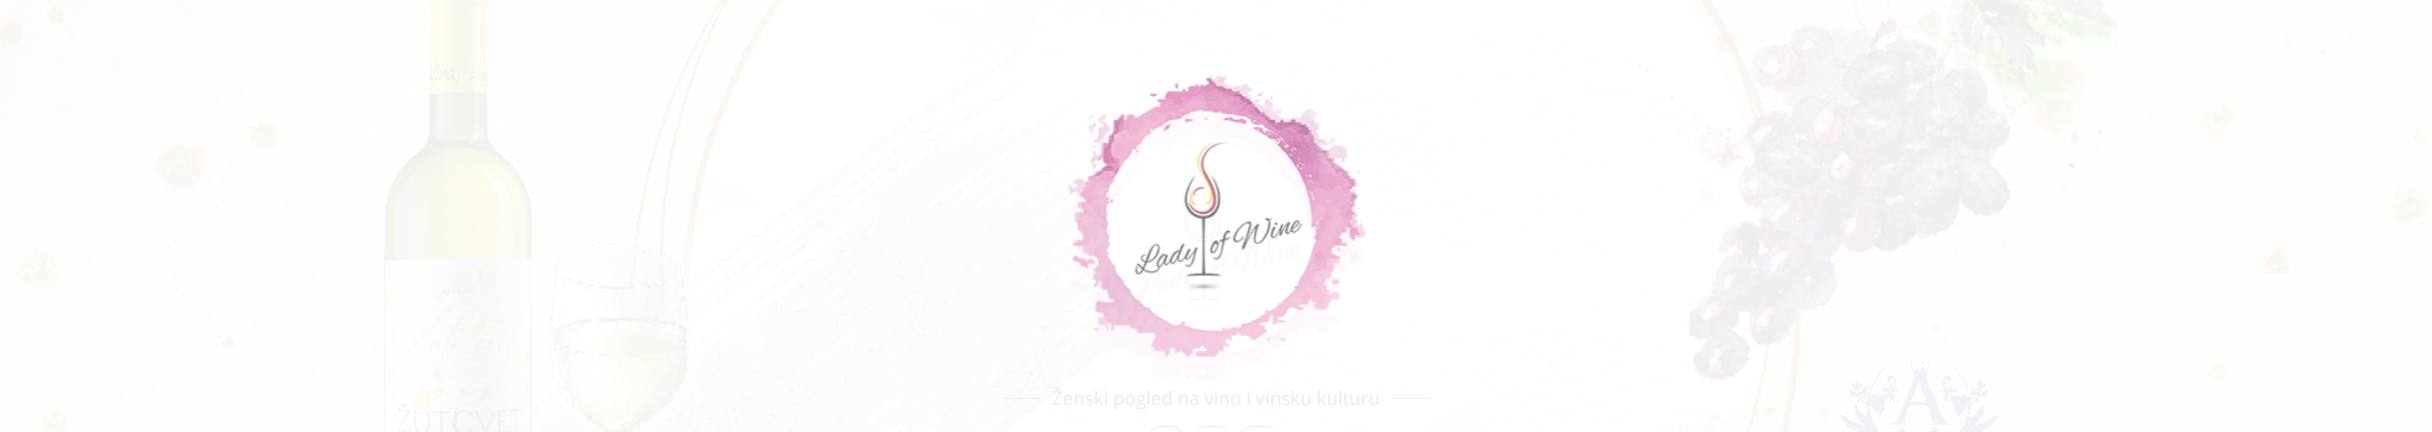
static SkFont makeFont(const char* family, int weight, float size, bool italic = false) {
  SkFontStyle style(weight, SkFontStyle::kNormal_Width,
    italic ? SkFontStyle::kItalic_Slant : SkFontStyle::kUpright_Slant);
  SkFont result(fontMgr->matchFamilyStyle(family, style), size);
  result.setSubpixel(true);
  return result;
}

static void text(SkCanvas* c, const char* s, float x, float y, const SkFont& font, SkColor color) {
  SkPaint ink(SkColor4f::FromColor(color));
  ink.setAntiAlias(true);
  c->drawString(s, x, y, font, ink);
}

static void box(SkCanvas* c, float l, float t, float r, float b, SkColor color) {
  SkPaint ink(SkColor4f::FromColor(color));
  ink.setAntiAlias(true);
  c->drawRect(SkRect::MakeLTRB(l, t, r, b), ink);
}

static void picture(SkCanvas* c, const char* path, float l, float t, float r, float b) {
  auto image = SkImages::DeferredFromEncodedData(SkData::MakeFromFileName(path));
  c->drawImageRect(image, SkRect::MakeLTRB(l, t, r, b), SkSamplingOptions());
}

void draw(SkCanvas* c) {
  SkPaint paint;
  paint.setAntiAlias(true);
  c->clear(0xffffffff);
  picture(c, "img_02.png", 0, 0, 2432, 432);
  picture(c, "img_03.png", 1067, 100, 1365, 382);
  picture(c, "img_01.png", 1067, 75, 1366, 357);
  box(c, 1003, 398, 1040, 399, 0xffededed);
  SkFont face1 = makeFont("Open Sans", 400, 18.75f);
  text(c, "Ženski pogled na vino i vinsku kulturu", 1052, 405, face1, 0xffededed);
  box(c, 1393, 398, 1430, 399, 0xffededed);
  paint.setStyle(SkPaint::kStroke_Style);
  paint.setStrokeWidth(1);
  paint.setColor(0xffededed);
  c->drawRoundRect(SkRect::MakeLTRB(1148.5f, 426.5f, 1184.5f, 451.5f), 18, 18, paint);
  c->drawRoundRect(SkRect::MakeLTRB(1194.5f, 426.5f, 1230.5f, 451.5f), 18, 18, paint);
  c->drawRoundRect(SkRect::MakeLTRB(1240.5f, 426.5f, 1277.5f, 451.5f), 18.5f, 18.5f, paint);
}
